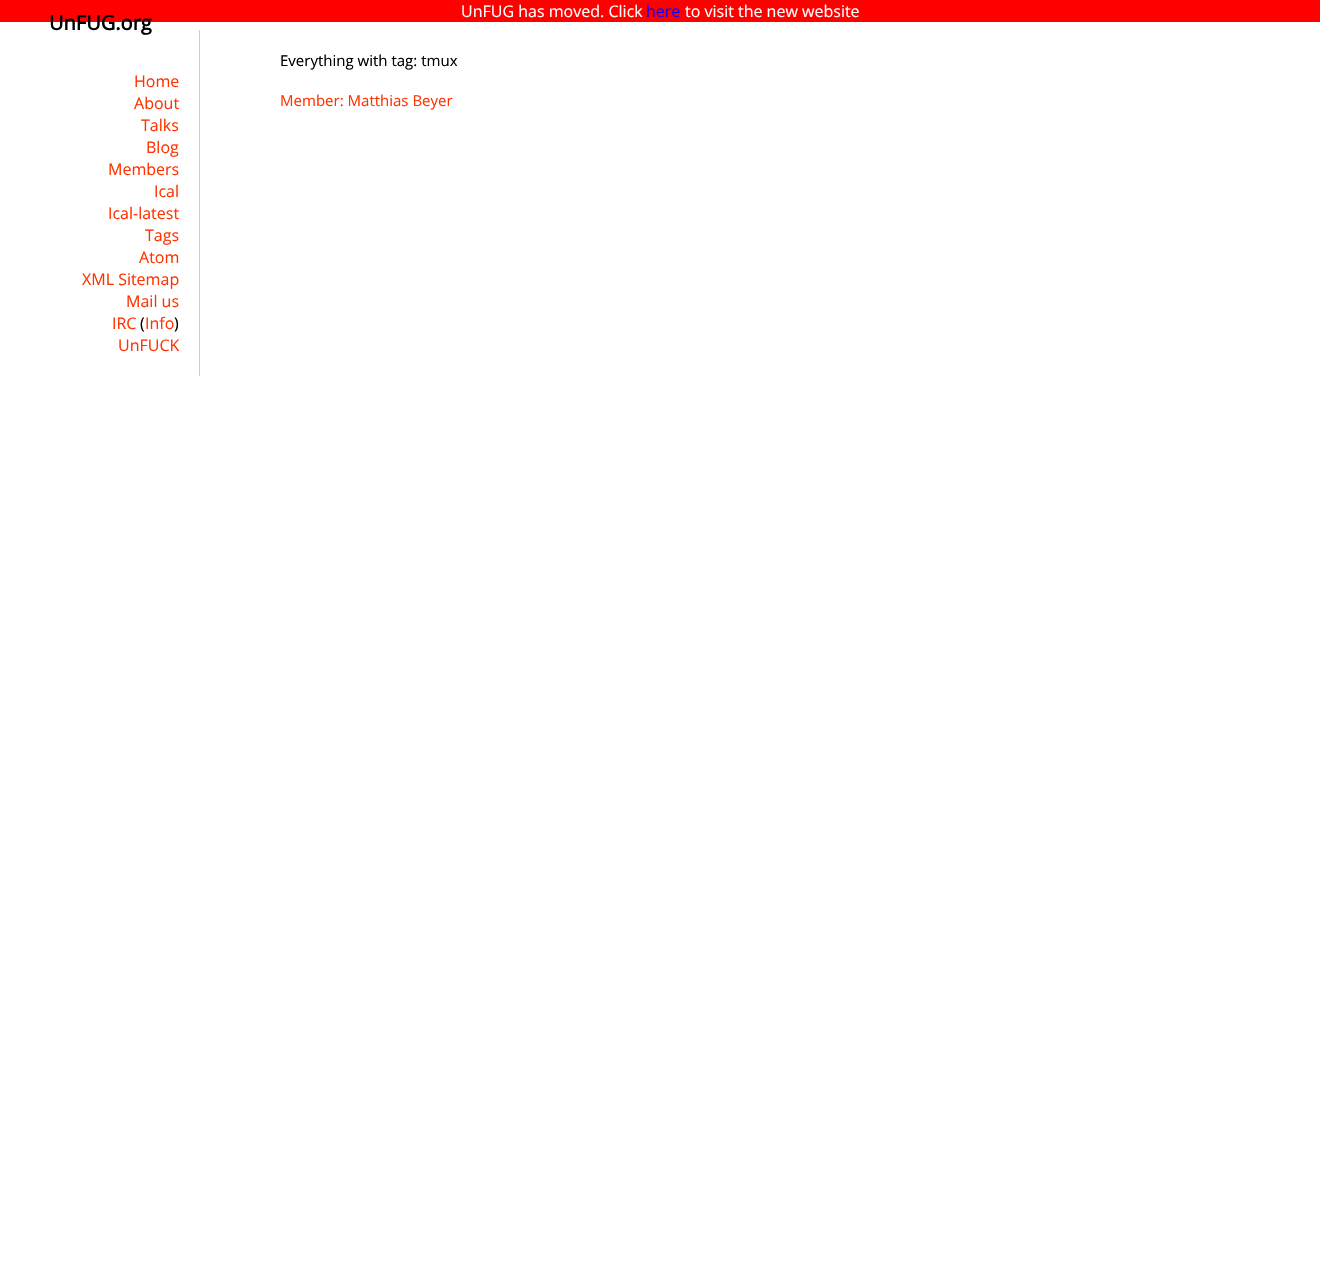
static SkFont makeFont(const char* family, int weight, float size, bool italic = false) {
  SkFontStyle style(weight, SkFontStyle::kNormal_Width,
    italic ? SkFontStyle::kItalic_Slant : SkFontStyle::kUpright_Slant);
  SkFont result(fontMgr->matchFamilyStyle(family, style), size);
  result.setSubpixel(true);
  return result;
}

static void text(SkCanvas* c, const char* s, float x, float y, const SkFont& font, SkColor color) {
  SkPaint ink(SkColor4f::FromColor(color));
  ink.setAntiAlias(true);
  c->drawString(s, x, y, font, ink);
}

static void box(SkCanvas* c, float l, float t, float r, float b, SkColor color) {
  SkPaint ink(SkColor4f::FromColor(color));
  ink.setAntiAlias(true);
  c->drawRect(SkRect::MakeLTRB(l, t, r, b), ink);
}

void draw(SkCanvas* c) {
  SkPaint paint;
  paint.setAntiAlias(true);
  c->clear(0xffffffff);
  box(c, 0, 0, 1320, 22, 0xffff0000);
  SkFont face1 = makeFont("Open Sans", 400, 16);
  text(c, "UnFUG has moved. Click", 461, 17, face1, 0xffffffff);
  text(c, "here", 646, 17, face1, 0xff1200ff);
  text(c, "to visit the new website", 685, 17, face1, 0xffffffff);
  SkFont face2 = makeFont("Open Sans", 700, 20);
  text(c, "UnFUG.org", 49, 30, face2, 0xff000000);
  box(c, 199, 30, 200, 376, 0xffcccccc);
  text(c, "Home", 134, 87, face1, 0xffff3300);
  text(c, "About", 134, 109, face1, 0xffff3300);
  text(c, "Talks", 141, 131, face1, 0xffff3300);
  text(c, "Blog", 146, 153, face1, 0xffff3300);
  text(c, "Members", 108, 175, face1, 0xffff3300);
  text(c, "Ical", 154, 197, face1, 0xffff3300);
  text(c, "Ical-latest", 108, 219, face1, 0xffff3300);
  text(c, "Tags", 145, 241, face1, 0xffff3300);
  text(c, "Atom", 139, 263, face1, 0xffff3300);
  text(c, "XML Sitemap", 82, 285, face1, 0xffff3300);
  text(c, "Mail us", 126, 307, face1, 0xffff3300);
  text(c, "IRC", 112, 329, face1, 0xffff3300);
  text(c, "(", 140, 329, face1, 0xff000000);
  text(c, "Info", 145, 329, face1, 0xffff3300);
  text(c, ")", 174, 329, face1, 0xff000000);
  text(c, "UnFUCK", 118, 351, face1, 0xffff3300);
  SkFont face3 = makeFont("Open Sans", 400, 15);
  text(c, "Everything with tag: tmux", 280, 66, face3, 0xff000000);
  text(c, "Member: Matthias Beyer", 280, 106, face3, 0xffff3300);
}
